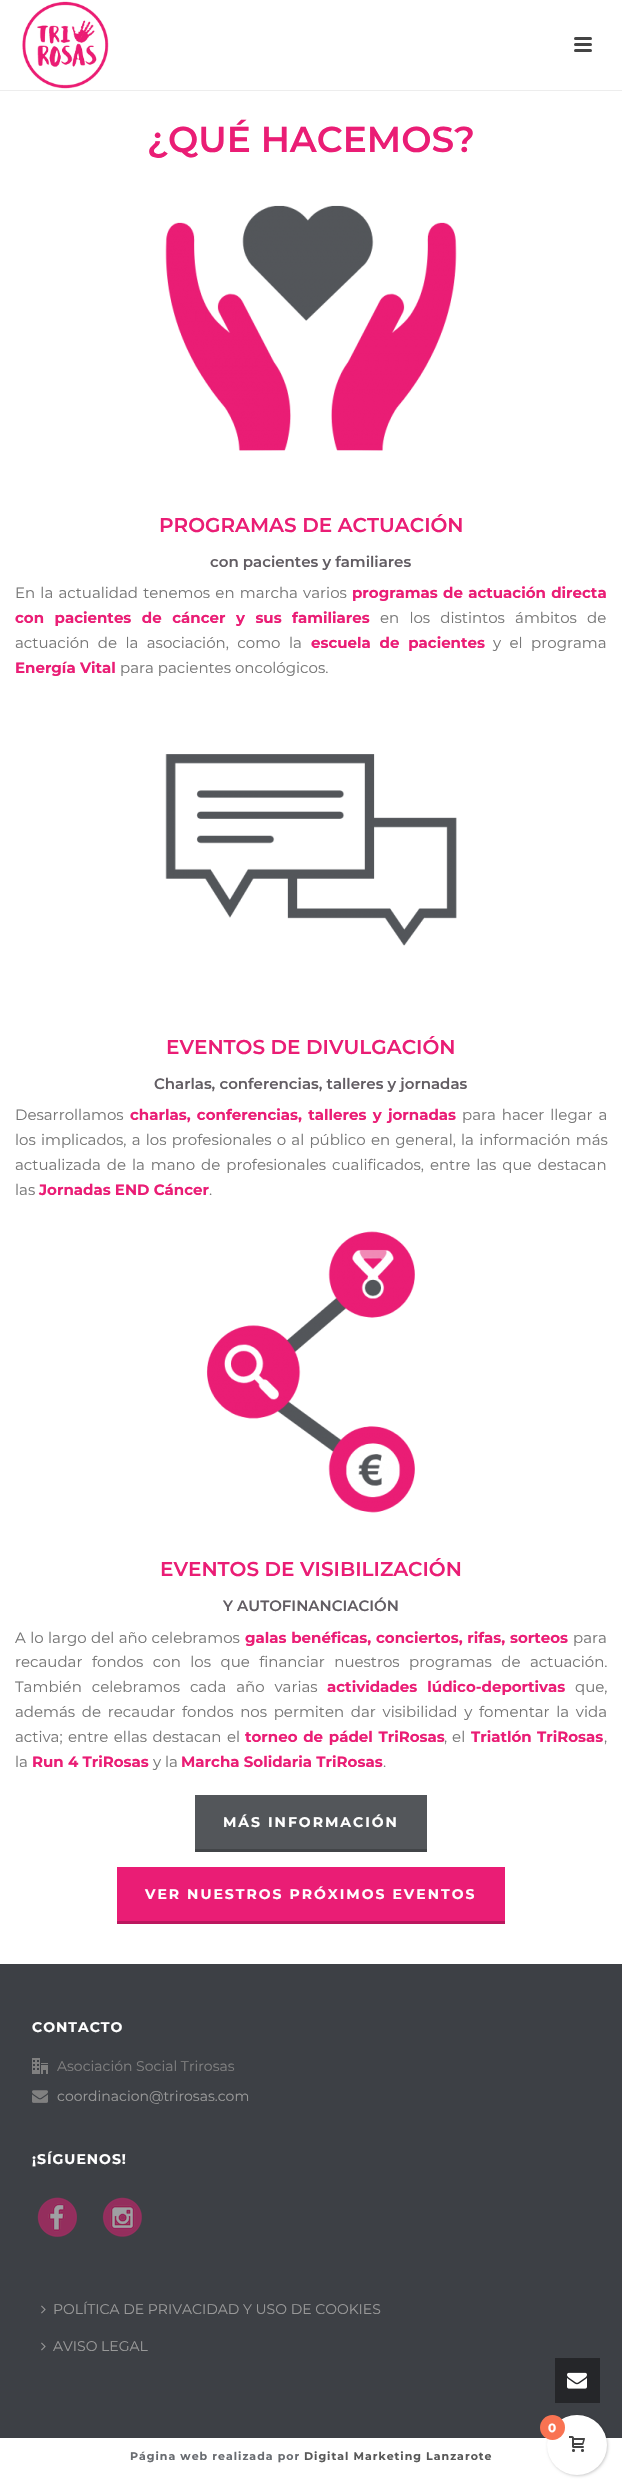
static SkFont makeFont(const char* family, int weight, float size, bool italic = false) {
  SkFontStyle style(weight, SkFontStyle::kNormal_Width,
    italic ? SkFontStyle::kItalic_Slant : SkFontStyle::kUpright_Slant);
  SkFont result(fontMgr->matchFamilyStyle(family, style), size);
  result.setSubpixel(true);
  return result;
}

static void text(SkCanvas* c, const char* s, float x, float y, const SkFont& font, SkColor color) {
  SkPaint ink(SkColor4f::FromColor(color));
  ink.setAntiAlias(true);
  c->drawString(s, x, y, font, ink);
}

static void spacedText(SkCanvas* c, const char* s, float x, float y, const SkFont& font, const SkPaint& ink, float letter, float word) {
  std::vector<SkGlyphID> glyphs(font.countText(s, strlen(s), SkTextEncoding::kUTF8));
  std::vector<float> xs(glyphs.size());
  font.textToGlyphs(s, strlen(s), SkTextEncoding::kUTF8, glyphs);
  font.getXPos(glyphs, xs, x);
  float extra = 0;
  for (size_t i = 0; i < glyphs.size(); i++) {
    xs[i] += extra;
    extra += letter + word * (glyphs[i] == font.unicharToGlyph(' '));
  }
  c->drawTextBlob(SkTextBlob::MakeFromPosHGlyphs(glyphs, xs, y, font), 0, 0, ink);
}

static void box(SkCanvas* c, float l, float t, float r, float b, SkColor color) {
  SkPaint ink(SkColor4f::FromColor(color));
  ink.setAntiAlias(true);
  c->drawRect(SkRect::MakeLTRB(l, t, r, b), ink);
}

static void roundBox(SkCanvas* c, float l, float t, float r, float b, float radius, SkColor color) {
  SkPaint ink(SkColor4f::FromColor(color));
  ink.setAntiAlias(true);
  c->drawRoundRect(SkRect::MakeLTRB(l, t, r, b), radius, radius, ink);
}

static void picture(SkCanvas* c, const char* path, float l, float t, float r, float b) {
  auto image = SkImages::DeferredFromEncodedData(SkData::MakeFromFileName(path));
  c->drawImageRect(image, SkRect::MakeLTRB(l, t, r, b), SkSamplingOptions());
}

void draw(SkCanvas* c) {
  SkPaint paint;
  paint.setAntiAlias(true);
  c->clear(0xffffffff);
  box(c, 0, 90, 622, 91, 0xffededed);
  picture(c, "img_01.png", 22, 1, 109, 89);
  roundBox(c, 574, 37, 592, 40, 1.5f, 0xff444444);
  roundBox(c, 574, 43, 592, 46, 1.5f, 0xff444444);
  roundBox(c, 574, 49, 592, 52, 1.5f, 0xff444444);
  SkFont face1 = makeFont("Montserrat", 600, 36);
  text(c, "¿QUÉ HACEMOS?", 147, 152, face1, 0xffea1d75);
  picture(c, "img_02.png", 165, 205, 457, 451);
  SkFont face2 = makeFont("Montserrat", 600, 20);
  text(c, "PROGRAMAS DE ACTUACIÓN", 159, 532, face2, 0xffea1d75);
  SkFont face3 = makeFont("Montserrat", 600, 15);
  text(c, "con pacientes y familiares", 210, 567, face3, 0xff625d63);
  SkFont face4 = makeFont("Montserrat", 400, 15);
  paint.setColor(0xff777777);
  spacedText(c, "En la actualidad tenemos en marcha varios", 15, 598, face4, paint, 0, 1.25f);
  SkFont face5 = makeFont("Montserrat", 700, 15);
  paint.setColor(0xffea1d75);
  spacedText(c, "programas de actuación directa", 352, 598, face5, paint, 0, 1);
  spacedText(c, "con pacientes de cáncer y sus familiares", 15, 623, face5, paint, 0, 6.25f);
  paint.setColor(0xff777777);
  spacedText(c, "en los distintos ámbitos de", 380, 623, face4, paint, 0, 6.25f);
  spacedText(c, "actuación de la asociación, como la", 15, 648, face4, paint, 0, 4.5f);
  paint.setColor(0xffea1d75);
  spacedText(c, "escuela de pacientes", 311, 648, face5, paint, 0, 4.5f);
  paint.setColor(0xff777777);
  spacedText(c, "y el programa", 493, 648, face4, paint, 0, 4.5f);
  text(c, "Energía Vital", 15, 673, face5, 0xffea1d75);
  text(c, "para pacientes oncológicos.", 120, 673, face4, 0xff777777);
  picture(c, "img_03.png", 165, 754, 457, 946);
  text(c, "EVENTOS DE DIVULGACIÓN", 166, 1054, face2, 0xffea1d75);
  text(c, "Charlas, conferencias, talleres y jornadas", 154, 1089, face3, 0xff625d63);
  text(c, "Desarrollamos", 15, 1120, face4, 0xff777777);
  paint.setColor(0xffea1d75);
  spacedText(c, "charlas, conferencias, talleres y jornadas", 130, 1120, face5, paint, 0, 2);
  paint.setColor(0xff777777);
  spacedText(c, "para hacer llegar a", 462, 1120, face4, paint, 0, 2);
  spacedText(c, "los implicados, a los profesionales o al público en general, la información más", 15, 1145, face4, paint, 0, 1.25f);
  spacedText(c, "actualizada de la mano de profesionales cualificados, entre las que destacan", 15, 1170, face4, paint, 0, 2);
  text(c, "las", 15, 1195, face4, 0xff777777);
  text(c, "Jornadas END Cáncer", 39, 1195, face5, 0xffea1d75);
  text(c, ".", 209, 1195, face4, 0xff777777);
  picture(c, "img_04.png", 206, 1231, 415, 1513);
  text(c, "EVENTOS DE VISIBILIZACIÓN", 160, 1576, face2, 0xffea1d75);
  text(c, "Y AUTOFINANCIACIÓN", 223, 1611, face3, 0xff625d63);
  spacedText(c, "A lo largo del año celebramos", 15, 1643, face4, paint, 0, 0.5f);
  paint.setColor(0xffea1d75);
  spacedText(c, "galas benéficas, conciertos, rifas, sorteos", 245, 1643, face5, paint, 0, 0.5f);
  text(c, "para", 573, 1643, face4, 0xff777777);
  paint.setColor(0xff777777);
  spacedText(c, "recaudar fondos con los que financiar nuestros programas de actuación.", 15, 1667, face4, paint, 0, 5.5f);
  spacedText(c, "También celebramos cada año varias", 15, 1692, face4, paint, 0, 6);
  paint.setColor(0xffea1d75);
  spacedText(c, "actividades lúdico-deportivas", 327, 1692, face5, paint, 0, 6);
  text(c, "que,", 575, 1692, face4, 0xff777777);
  paint.setColor(0xff777777);
  spacedText(c, "además de recaudar fondos nos permiten dar visibilidad y fomentar la vida", 15, 1717, face4, paint, 0, 2.75f);
  spacedText(c, "activa; entre ellas destacan el", 15, 1742, face4, paint, 0, 1.5f);
  paint.setColor(0xffea1d75);
  spacedText(c, "torneo de pádel TriRosas", 245, 1742, face5, paint, 0, 1.5f);
  paint.setColor(0xff777777);
  spacedText(c, ", el", 444, 1742, face4, paint, 0, 1);
  paint.setColor(0xffea1d75);
  spacedText(c, "Triatlón TriRosas", 471, 1742, face5, paint, 0, 1);
  text(c, ",", 604, 1742, face4, 0xff777777);
  text(c, "la", 15, 1767, face4, 0xff777777);
  text(c, "Run 4 TriRosas", 32, 1767, face5, 0xffea1d75);
  text(c, "y la", 153, 1767, face4, 0xff777777);
  text(c, "Marcha Solidaria TriRosas", 181, 1767, face5, 0xffea1d75);
  text(c, ".", 383, 1767, face4, 0xff777777);
  box(c, 195, 1849, 427, 1852, 0xff424548);
  box(c, 195, 1795, 427, 1849, 0xff53565a);
  SkFont face6 = makeFont("Montserrat", 700, 14);
  paint.setColor(0xffffffff);
  spacedText(c, "MÁS INFORMACIÓN", 223, 1827, face6, paint, 2, 0);
  box(c, 117, 1921, 505, 1924, 0xffbb175e);
  box(c, 117, 1867, 505, 1921, 0xffea1d75);
  spacedText(c, "VER NUESTROS PRÓXIMOS EVENTOS", 145, 1899, face6, paint, 2, 0);
  box(c, 0, 1964, 622, 2438, 0xff3d4045);
  spacedText(c, "CONTACTO", 32, 2032, face6, paint, 1, 0);
  picture(c, "img_05.png", 32, 2058, 48, 2074);
  SkFont face7 = makeFont("Montserrat", 400, 14);
  text(c, "Asociación Social Trirosas", 57, 2071, face7, 0xff808080);
  picture(c, "img_06.png", 32, 2090, 48, 2103);
  text(c, "coordinacion@trirosas.com", 57, 2101, face7, 0xff999999);
  spacedText(c, "¡SÍGUENOS!", 32, 2164, face6, paint, 1, 0);
  picture(c, "img_07.png", 37, 2197, 77, 2237);
  picture(c, "img_08.png", 102, 2197, 142, 2237);
  picture(c, "img_09.png", 41, 2305, 46, 2314);
  text(c, "POLÍTICA DE PRIVACIDAD Y USO DE COOKIES", 53, 2314, face7, 0xff999999);
  picture(c, "img_09.png", 41, 2342, 46, 2351);
  text(c, "AVISO LEGAL", 53, 2351, face7, 0xff999999);
  SkFont face8 = makeFont("Montserrat", 700, 11);
  paint.setColor(0xff696c71);
  spacedText(c, "Página web realizada por", 130, 2460, face8, paint, 1, 0);
  paint.setColor(0xff585858);
  spacedText(c, "Digital Marketing Lanzarote", 304, 2460, face8, paint, 1, 0);
  box(c, 555, 2358, 600, 2403, 0xff252629);
  picture(c, "img_10.png", 567, 2372, 587, 2389);
  paint.setColor(0x33000000);
  paint.setMaskFilter(SkMaskFilter::MakeBlur(kNormal_SkBlurStyle, 1.5f));
  c->drawRoundRect(SkRect::MakeLTRB(548, 2416, 608, 2476), 30, 30, paint);
  paint.setMaskFilter(nullptr);
  paint.setColor(0xffffffff);
  c->drawCircle(577, 2445, 30, paint);
  paint.setColor(0xfff97352);
  c->drawCircle(552.5f, 2427.5f, 12.5f, paint);
  SkFont face9 = makeFont("Montserrat", 700, 12);
  text(c, "0", 548, 2432, face9, 0xffffffff);
  picture(c, "img_11.png", 569, 2436, 585, 2452);
}
